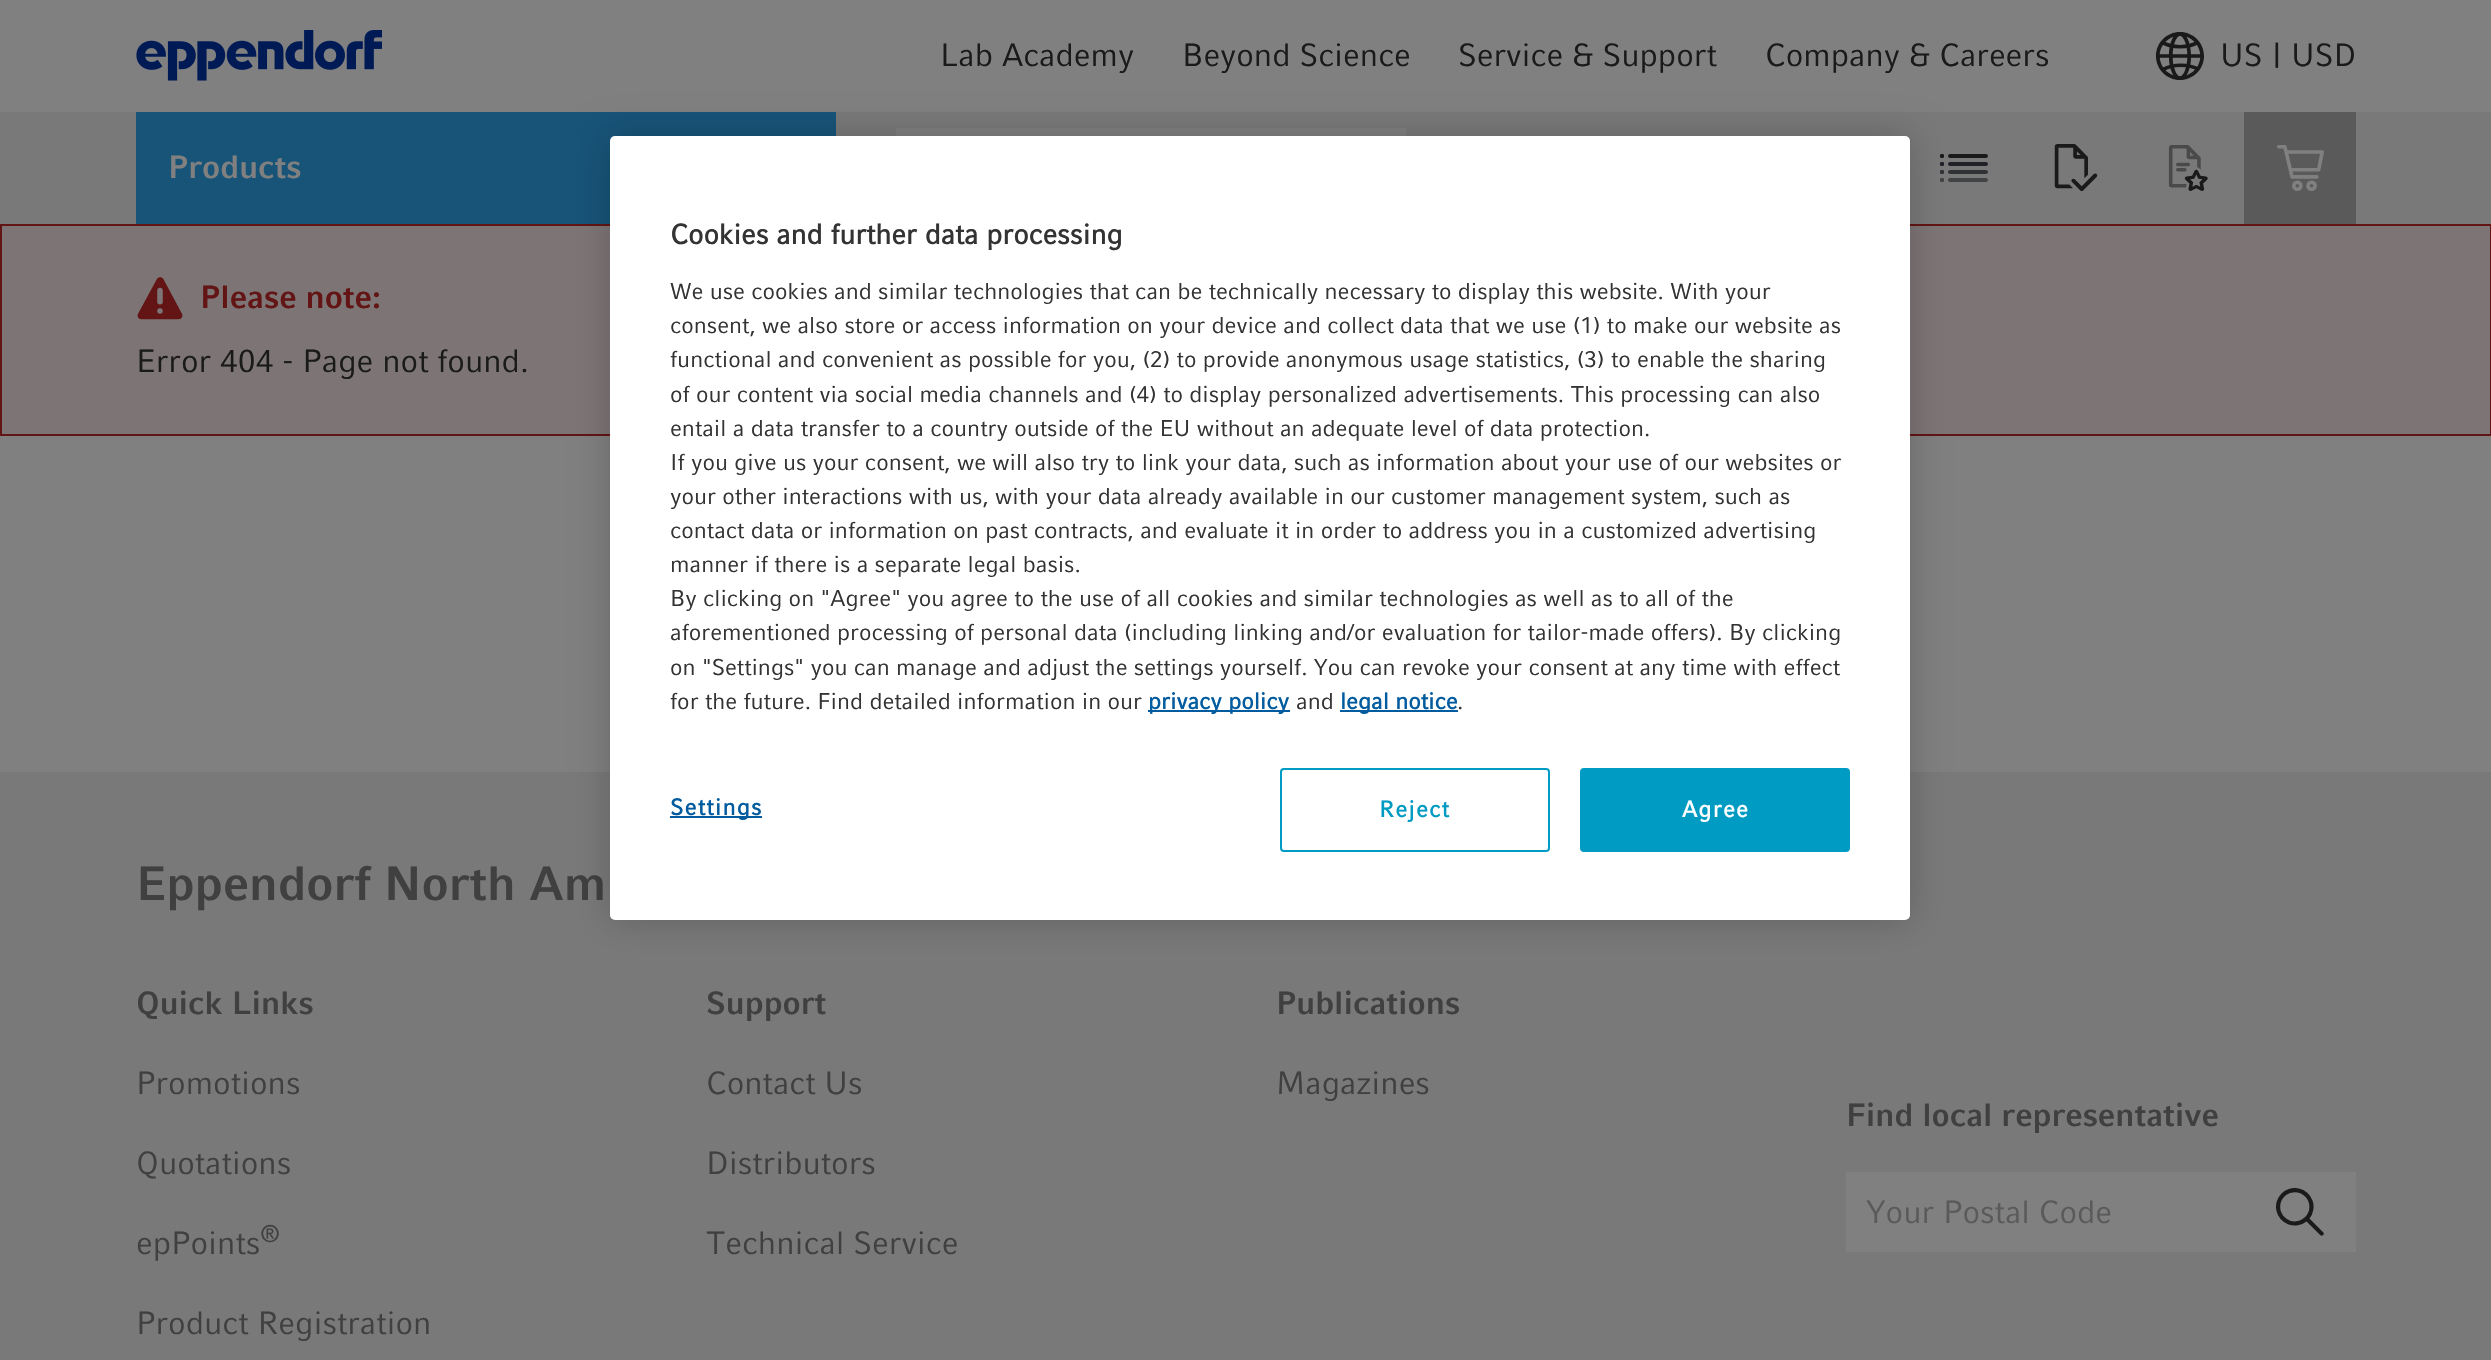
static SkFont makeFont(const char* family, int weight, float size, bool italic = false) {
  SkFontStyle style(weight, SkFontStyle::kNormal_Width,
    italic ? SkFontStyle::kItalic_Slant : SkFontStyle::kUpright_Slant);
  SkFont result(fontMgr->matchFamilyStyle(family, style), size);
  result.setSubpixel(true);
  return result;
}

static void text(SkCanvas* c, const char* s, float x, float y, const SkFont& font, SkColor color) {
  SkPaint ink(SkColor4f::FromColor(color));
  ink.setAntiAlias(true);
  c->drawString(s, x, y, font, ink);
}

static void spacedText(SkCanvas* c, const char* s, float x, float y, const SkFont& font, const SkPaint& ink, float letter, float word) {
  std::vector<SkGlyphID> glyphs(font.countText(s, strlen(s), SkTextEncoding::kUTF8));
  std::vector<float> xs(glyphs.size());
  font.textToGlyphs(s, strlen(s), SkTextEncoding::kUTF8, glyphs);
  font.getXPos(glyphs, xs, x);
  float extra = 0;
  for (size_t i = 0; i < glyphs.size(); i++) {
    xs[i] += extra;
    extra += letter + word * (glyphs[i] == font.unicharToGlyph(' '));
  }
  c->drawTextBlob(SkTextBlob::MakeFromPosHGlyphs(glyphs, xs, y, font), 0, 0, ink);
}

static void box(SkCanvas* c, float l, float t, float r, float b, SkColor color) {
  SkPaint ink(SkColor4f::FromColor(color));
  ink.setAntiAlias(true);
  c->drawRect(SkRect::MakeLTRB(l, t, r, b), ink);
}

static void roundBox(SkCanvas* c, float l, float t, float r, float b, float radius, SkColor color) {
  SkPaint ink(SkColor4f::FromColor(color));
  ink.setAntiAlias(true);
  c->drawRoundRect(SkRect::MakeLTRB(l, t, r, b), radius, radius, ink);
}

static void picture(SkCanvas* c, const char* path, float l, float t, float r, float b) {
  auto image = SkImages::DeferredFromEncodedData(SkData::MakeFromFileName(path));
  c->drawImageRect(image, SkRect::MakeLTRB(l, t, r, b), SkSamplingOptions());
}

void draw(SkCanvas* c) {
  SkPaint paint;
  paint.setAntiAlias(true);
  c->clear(0xff808080);
  picture(c, "img_01.png", 136, 30, 382, 81);
  SkFont face1 = makeFont("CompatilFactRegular", 400, 32);
  text(c, "Lab Academy", 940, 66, face1, 0xff1a1a1a);
  text(c, "Beyond Science", 1182, 66, face1, 0xff1a1a1a);
  text(c, "Service & Support", 1458, 66, face1, 0xff1a1a1a);
  text(c, "Company & Careers", 1765, 66, face1, 0xff1a1a1a);
  picture(c, "img_02.png", 2156, 32, 2204, 80);
  text(c, "US | USD", 2220, 66, face1, 0xff1a1a1a);
  box(c, 0, 112, 2491, 224, 0xff797979);
  box(c, 896, 128, 1406, 136, 0xff808080);
  picture(c, "img_03.png", 1940, 154, 1988, 182);
  picture(c, "img_04.png", 2054, 144, 2098, 191);
  picture(c, "img_05.png", 2168, 145, 2208, 191);
  box(c, 2244, 112, 2356, 224, 0xff5a5a5a);
  picture(c, "img_06.png", 2277, 145, 2324, 191);
  box(c, 136, 112, 836, 224, 0xff175478);
  SkFont face2 = makeFont("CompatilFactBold", 700, 32);
  text(c, "Products", 168, 178, face2, 0xff808080);
  paint.setColor(0xff7d7575);
  c->drawRect(SkRect::MakeLTRB(1, 225, 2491, 435), paint);
  paint.setStyle(SkPaint::kStroke_Style);
  paint.setStrokeWidth(2);
  paint.setColor(0xff631414);
  c->drawRect(SkRect::MakeLTRB(1, 225, 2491, 435), paint);
  picture(c, "img_07.png", 137, 277, 183, 320);
  text(c, "Please note:", 200, 308, face2, 0xff631414);
  text(c, "Error 404 - Page not found.", 136, 372, face1, 0xff1a1a1a);
  box(c, 0, 772, 2491, 1360, 0xff797979);
  SkFont face3 = makeFont("CompatilFactBold", 700, 48);
  text(c, "Eppendorf North Am", 136, 900, face3, 0xff404040);
  text(c, "Quick Links", 136, 1014, face2, 0xff404040);
  text(c, "Promotions", 136, 1094, face1, 0xff404040);
  text(c, "Quotations", 136, 1174, face1, 0xff404040);
  text(c, "epPoints", 136, 1254, face1, 0xff404040);
  SkFont face4 = makeFont("CompatilFactRegular", 400, 24);
  text(c, "®", 260, 1242, face4, 0xff404040);
  text(c, "Product Registration", 136, 1334, face1, 0xff404040);
  text(c, "Support", 706, 1014, face2, 0xff404040);
  text(c, "Contact Us", 706, 1094, face1, 0xff404040);
  text(c, "Distributors", 706, 1174, face1, 0xff404040);
  text(c, "Technical Service", 706, 1254, face1, 0xff404040);
  text(c, "Publications", 1276, 1014, face2, 0xff404040);
  text(c, "Magazines", 1276, 1094, face1, 0xff404040);
  text(c, "Find local representative", 1846, 1126, face2, 0xff404040);
  box(c, 1846, 1172, 2356, 1252, 0xff808080);
  text(c, "Your Postal Code", 1866, 1223, face1, 0xff5a5a5a);
  picture(c, "img_08.png", 2276, 1188, 2324, 1236);
  paint.setStyle(SkPaint::kFill_Style);
  paint.setColor(0x33000000);
  paint.setMaskFilter(SkMaskFilter::MakeBlur(kNormal_SkBlurStyle, 18));
  c->drawRoundRect(SkRect::MakeLTRB(610, 136, 1910, 920), 5, 5, paint);
  paint.setMaskFilter(nullptr);
  roundBox(c, 610, 136, 1910, 920, 5, 0xffffffff);
  SkFont face5 = makeFont("CompatilFactRegular", 700, 28);
  text(c, "Cookies and further data processing", 670, 244, face5, 0xff333333);
  SkFont face6 = makeFont("CompatilFactRegular", 400, 22.75f);
  text(c, "We use cookies and similar technologies that can be technically necessary to display this website. With your", 670, 299, face6, 0xff333333);
  text(c, "consent, we also store or access information on your device and collect data that we use (1) to make our website as", 670, 333, face6, 0xff333333);
  text(c, "functional and convenient as possible for you, (2) to provide anonymous usage statistics, (3) to enable the sharing", 670, 367, face6, 0xff333333);
  text(c, "of our content via social media channels and (4) to display personalized advertisements. This processing can also", 670, 402, face6, 0xff333333);
  text(c, "entail a data transfer to a country outside of the EU without an adequate level of data protection.", 670, 436, face6, 0xff333333);
  text(c, "If you give us your consent, we will also try to link your data, such as information about your use of our websites or", 670, 470, face6, 0xff333333);
  text(c, "your other interactions with us, with your data already available in our customer management system, such as", 670, 504, face6, 0xff333333);
  text(c, "contact data or information on past contracts, and evaluate it in order to address you in a customized advertising", 670, 538, face6, 0xff333333);
  text(c, "manner if there is a separate legal basis.", 670, 572, face6, 0xff333333);
  text(c, "By clicking on \"Agree\" you agree to the use of all cookies and similar technologies as well as to all of the", 670, 606, face6, 0xff333333);
  text(c, "aforementioned processing of personal data (including linking and/or evaluation for tailor-made offers). By clicking", 670, 640, face6, 0xff333333);
  text(c, "on \"Settings\" you can manage and adjust the settings yourself. You can revoke your consent at any time with effect", 670, 675, face6, 0xff333333);
  text(c, "for the future. Find detailed information in our", 670, 709, face6, 0xff333333);
  box(c, 1148, 710, 1290, 712, 0xff005b9f);
  SkFont face7 = makeFont("CompatilFactRegular", 700, 22.75f);
  text(c, "privacy policy", 1148, 709, face7, 0xff005b9f);
  text(c, "and", 1296, 709, face6, 0xff333333);
  box(c, 1340, 710, 1458, 712, 0xff005b9f);
  text(c, "legal notice", 1340, 709, face7, 0xff005b9f);
  text(c, ".", 1457, 709, face6, 0xff333333);
  box(c, 670, 816, 762, 818, 0xff005b9f);
  paint.setColor(0xff005b9f);
  spacedText(c, "Settings", 670, 815, face7, paint, 1.25f, 0);
  paint.setStyle(SkPaint::kStroke_Style);
  paint.setColor(0xff009bc2);
  c->drawRoundRect(SkRect::MakeLTRB(1281, 769, 1549, 851), 3, 3, paint);
  paint.setStyle(SkPaint::kFill_Style);
  spacedText(c, "Reject", 1379, 817, face7, paint, 1.25f, 0);
  c->drawRoundRect(SkRect::MakeLTRB(1581, 769, 1849, 851), 3, 3, paint);
  paint.setStyle(SkPaint::kStroke_Style);
  c->drawRoundRect(SkRect::MakeLTRB(1581, 769, 1849, 851), 3, 3, paint);
  paint.setStyle(SkPaint::kFill_Style);
  paint.setColor(0xffffffff);
  spacedText(c, "Agree", 1682, 817, face7, paint, 1.25f, 0);
}
